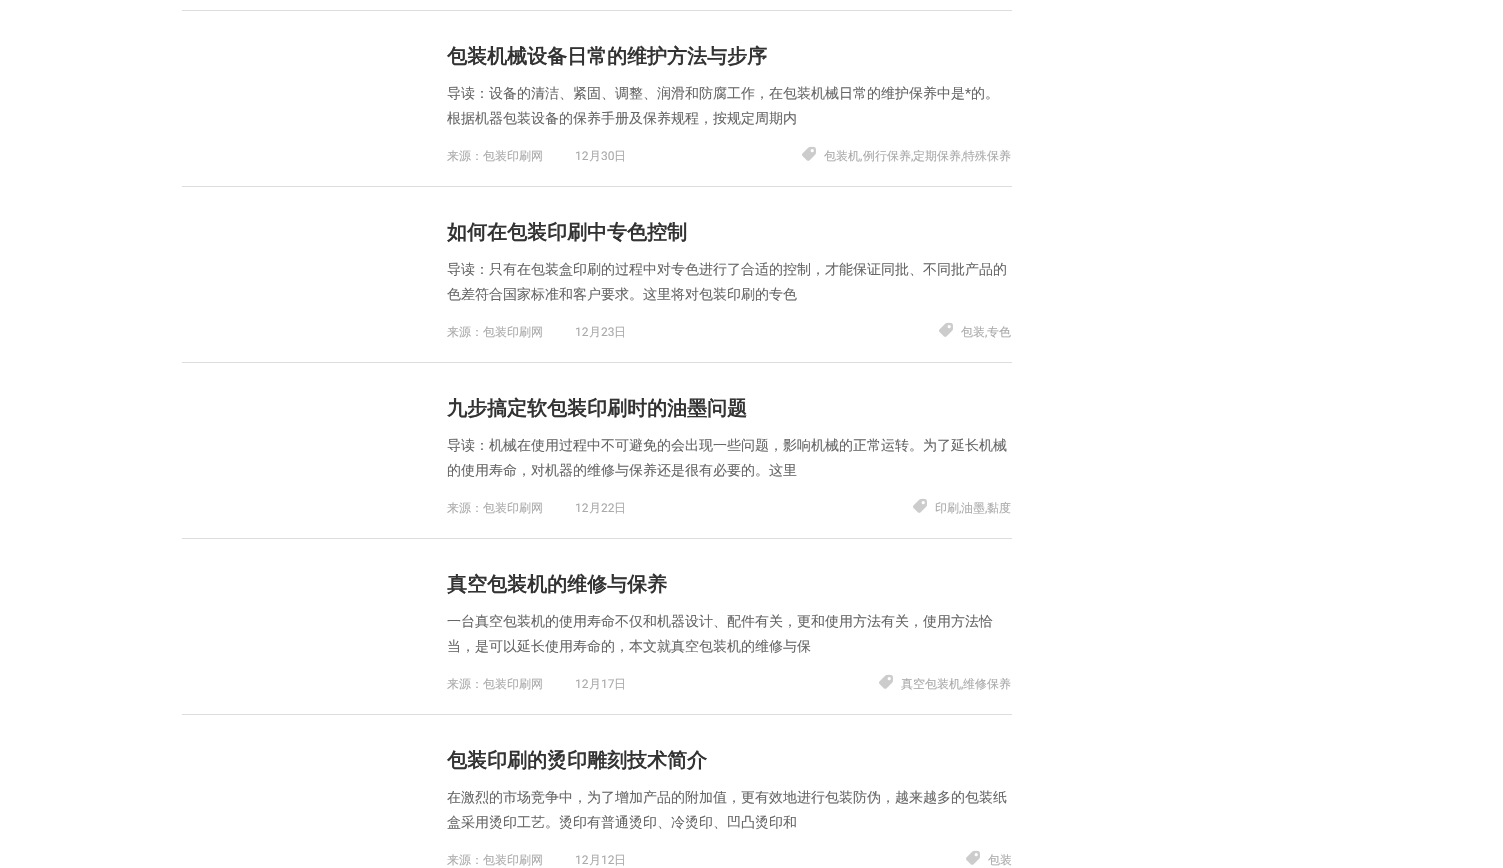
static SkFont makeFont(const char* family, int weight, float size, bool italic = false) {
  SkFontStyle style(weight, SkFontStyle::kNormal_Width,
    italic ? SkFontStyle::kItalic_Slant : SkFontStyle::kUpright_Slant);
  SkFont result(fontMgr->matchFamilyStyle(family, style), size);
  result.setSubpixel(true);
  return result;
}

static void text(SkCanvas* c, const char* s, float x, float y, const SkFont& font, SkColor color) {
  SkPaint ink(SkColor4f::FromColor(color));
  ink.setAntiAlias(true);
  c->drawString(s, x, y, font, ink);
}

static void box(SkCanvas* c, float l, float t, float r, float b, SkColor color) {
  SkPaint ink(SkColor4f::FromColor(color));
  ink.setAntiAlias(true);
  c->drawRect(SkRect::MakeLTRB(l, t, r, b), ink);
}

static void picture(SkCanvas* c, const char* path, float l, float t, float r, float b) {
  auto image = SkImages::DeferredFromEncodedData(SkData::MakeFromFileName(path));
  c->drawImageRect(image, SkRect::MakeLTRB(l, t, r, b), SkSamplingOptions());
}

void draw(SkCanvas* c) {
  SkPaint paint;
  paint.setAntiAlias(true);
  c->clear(0xffffffff);
  box(c, 182, 10, 1012, 11, 0xffdddddd);
  box(c, 182, 186, 1012, 187, 0xffdddddd);
  SkFont face1 = makeFont("WenQuanYi Zen Hei", 700, 20);
  text(c, "包装机械设备日常的维护方法与步序", 447, 63, face1, 0xff333333);
  SkFont face2 = makeFont("WenQuanYi Zen Hei", 500, 14);
  text(c, "导读：设备的清洁、紧固、调整、润滑和防腐工作，在包装机械日常的维护保养中是", 447, 98, face2, 0xff666666);
  SkFont face3 = makeFont("Roboto", 400, 14);
  text(c, "*", 965, 98, face3, 0xff666666);
  text(c, "的。", 971, 98, face2, 0xff666666);
  text(c, "根据机器包装设备的保养手册及保养规程，按规定周期内", 447, 123, face2, 0xff666666);
  SkFont face4 = makeFont("WenQuanYi Zen Hei", 500, 12);
  text(c, "来源：包装印刷网", 447, 160, face4, 0xffaaaaaa);
  SkFont face5 = makeFont("Roboto", 400, 12);
  text(c, "12", 575, 160, face5, 0xffaaaaaa);
  text(c, "月", 589, 160, face4, 0xffaaaaaa);
  text(c, "30", 601, 160, face5, 0xffaaaaaa);
  text(c, "日", 614, 160, face4, 0xffaaaaaa);
  picture(c, "img_01.png", 802, 146, 816, 161);
  text(c, "包装机", 824, 160, face4, 0xffaaaaaa);
  text(c, ",", 860, 160, face5, 0xffaaaaaa);
  text(c, "例行保养", 863, 160, face4, 0xffaaaaaa);
  text(c, ",", 911, 160, face5, 0xffaaaaaa);
  text(c, "定期保养", 913, 160, face4, 0xffaaaaaa);
  text(c, ",", 961, 160, face5, 0xffaaaaaa);
  text(c, "特殊保养", 963, 160, face4, 0xffaaaaaa);
  box(c, 182, 362, 1012, 363, 0xffdddddd);
  text(c, "如何在包装印刷中专色控制", 447, 239, face1, 0xff333333);
  text(c, "导读：只有在包装盒印刷的过程中对专色进行了合适的控制，才能保证同批、不同批产品的", 447, 274, face2, 0xff666666);
  text(c, "色差符合国家标准和客户要求。这里将对包装印刷的专色", 447, 299, face2, 0xff666666);
  text(c, "来源：包装印刷网", 447, 336, face4, 0xffaaaaaa);
  text(c, "12", 575, 336, face5, 0xffaaaaaa);
  text(c, "月", 589, 336, face4, 0xffaaaaaa);
  text(c, "23", 601, 336, face5, 0xffaaaaaa);
  text(c, "日", 614, 336, face4, 0xffaaaaaa);
  picture(c, "img_01.png", 939, 322, 953, 337);
  text(c, "包装", 961, 336, face4, 0xffaaaaaa);
  text(c, ",", 985, 336, face5, 0xffaaaaaa);
  text(c, "专色", 987, 336, face4, 0xffaaaaaa);
  box(c, 182, 538, 1012, 539, 0xffdddddd);
  text(c, "九步搞定软包装印刷时的油墨问题", 447, 415, face1, 0xff333333);
  text(c, "导读：机械在使用过程中不可避免的会出现一些问题，影响机械的正常运转。为了延长机械", 447, 450, face2, 0xff666666);
  text(c, "的使用寿命，对机器的维修与保养还是很有必要的。这里", 447, 475, face2, 0xff666666);
  text(c, "来源：包装印刷网", 447, 512, face4, 0xffaaaaaa);
  text(c, "12", 575, 512, face5, 0xffaaaaaa);
  text(c, "月", 589, 512, face4, 0xffaaaaaa);
  text(c, "22", 601, 512, face5, 0xffaaaaaa);
  text(c, "日", 614, 512, face4, 0xffaaaaaa);
  picture(c, "img_01.png", 913, 498, 927, 513);
  text(c, "印刷", 935, 512, face4, 0xffaaaaaa);
  text(c, ",", 959, 512, face5, 0xffaaaaaa);
  text(c, "油墨", 961, 512, face4, 0xffaaaaaa);
  text(c, ",", 985, 512, face5, 0xffaaaaaa);
  text(c, "黏度", 987, 512, face4, 0xffaaaaaa);
  box(c, 182, 714, 1012, 715, 0xffdddddd);
  text(c, "真空包装机的维修与保养", 447, 591, face1, 0xff333333);
  text(c, "一台真空包装机的使用寿命不仅和机器设计、配件有关，更和使用方法有关，使用方法恰", 447, 626, face2, 0xff666666);
  text(c, "当，是可以延长使用寿命的，本文就真空包装机的维修与保", 447, 651, face2, 0xff666666);
  text(c, "来源：包装印刷网", 447, 688, face4, 0xffaaaaaa);
  text(c, "12", 575, 688, face5, 0xffaaaaaa);
  text(c, "月", 589, 688, face4, 0xffaaaaaa);
  text(c, "17", 601, 688, face5, 0xffaaaaaa);
  text(c, "日", 614, 688, face4, 0xffaaaaaa);
  picture(c, "img_01.png", 879, 674, 893, 689);
  text(c, "真空包装机", 901, 688, face4, 0xffaaaaaa);
  text(c, ",", 961, 688, face5, 0xffaaaaaa);
  text(c, "维修保养", 963, 688, face4, 0xffaaaaaa);
  text(c, "包装印刷的烫印雕刻技术简介", 447, 767, face1, 0xff333333);
  text(c, "在激烈的市场竞争中，为了增加产品的附加值，更有效地进行包装防伪，越来越多的包装纸", 447, 802, face2, 0xff666666);
  text(c, "盒采用烫印工艺。烫印有普通烫印、冷烫印、凹凸烫印和", 447, 827, face2, 0xff666666);
  text(c, "来源：包装印刷网", 447, 864, face4, 0xffaaaaaa);
  text(c, "12", 575, 864, face5, 0xffaaaaaa);
  text(c, "月", 589, 864, face4, 0xffaaaaaa);
  text(c, "12", 601, 864, face5, 0xffaaaaaa);
  text(c, "日", 614, 864, face4, 0xffaaaaaa);
  picture(c, "img_01.png", 966, 850, 980, 865);
  text(c, "包装", 988, 864, face4, 0xffaaaaaa);
}
